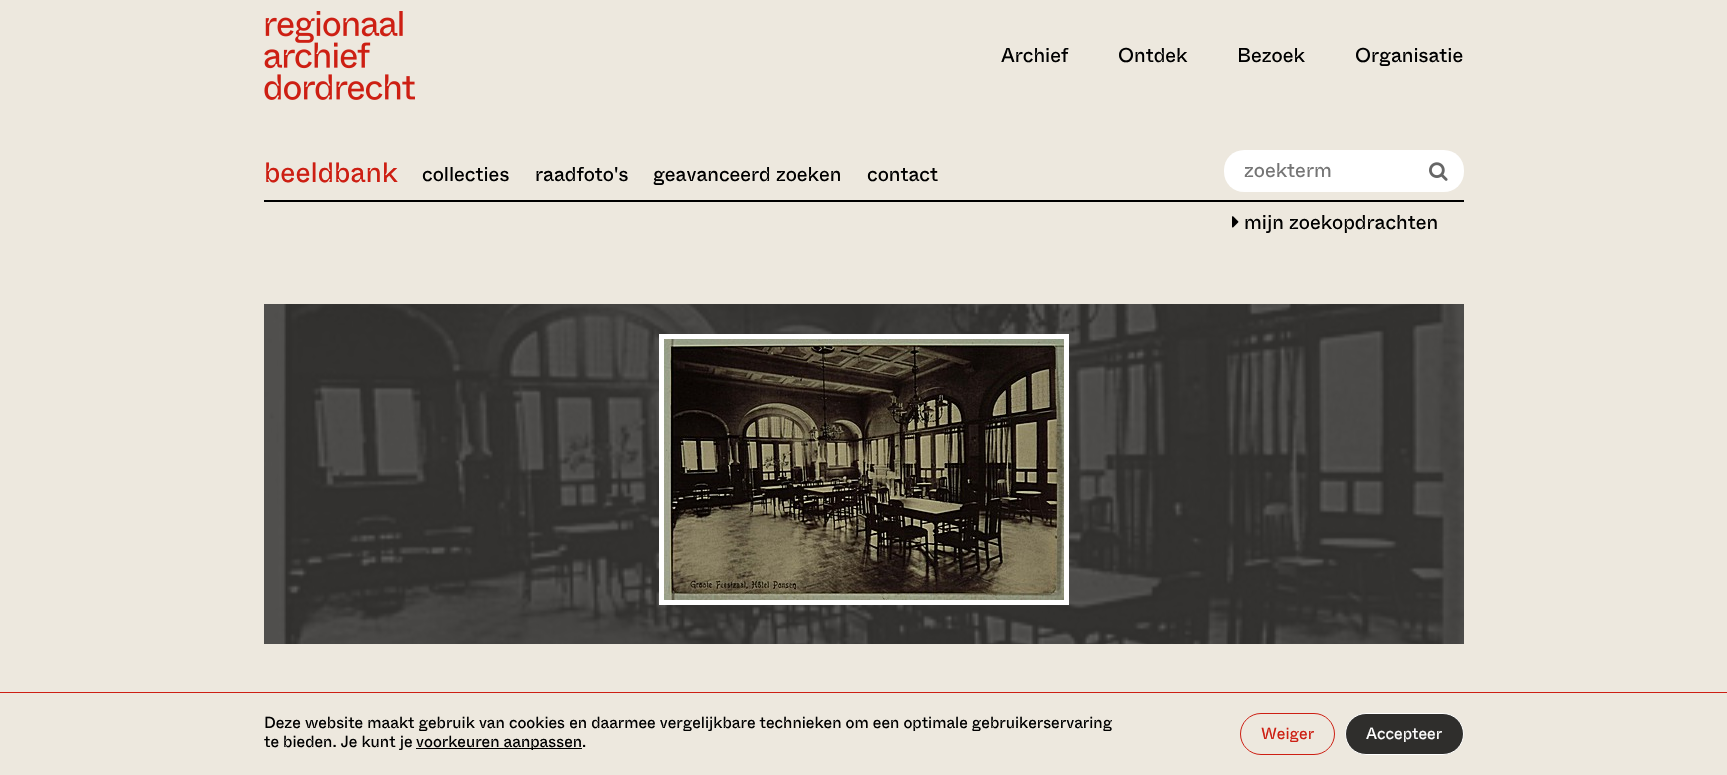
static SkFont makeFont(const char* family, int weight, float size, bool italic = false) {
  SkFontStyle style(weight, SkFontStyle::kNormal_Width,
    italic ? SkFontStyle::kItalic_Slant : SkFontStyle::kUpright_Slant);
  SkFont result(fontMgr->matchFamilyStyle(family, style), size);
  result.setSubpixel(true);
  return result;
}

static void text(SkCanvas* c, const char* s, float x, float y, const SkFont& font, SkColor color) {
  SkPaint ink(SkColor4f::FromColor(color));
  ink.setAntiAlias(true);
  c->drawString(s, x, y, font, ink);
}

static void box(SkCanvas* c, float l, float t, float r, float b, SkColor color) {
  SkPaint ink(SkColor4f::FromColor(color));
  ink.setAntiAlias(true);
  c->drawRect(SkRect::MakeLTRB(l, t, r, b), ink);
}

static void roundBox(SkCanvas* c, float l, float t, float r, float b, float radius, SkColor color) {
  SkPaint ink(SkColor4f::FromColor(color));
  ink.setAntiAlias(true);
  c->drawRoundRect(SkRect::MakeLTRB(l, t, r, b), radius, radius, ink);
}

static void picture(SkCanvas* c, const char* path, float l, float t, float r, float b) {
  auto image = SkImages::DeferredFromEncodedData(SkData::MakeFromFileName(path));
  c->drawImageRect(image, SkRect::MakeLTRB(l, t, r, b), SkSamplingOptions());
}

void draw(SkCanvas* c) {
  SkPaint paint;
  paint.setAntiAlias(true);
  c->clear(0xffede8de);
  box(c, 264, 304, 1464, 644, 0xff5f5d59);
  picture(c, "img_01.png", 264, 11, 415, 100);
  SkFont face1 = makeFont("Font", 400, 20);
  text(c, "Archief", 1001, 62, face1, 0xff000000);
  text(c, "Ontdek", 1118, 62, face1, 0xff000000);
  text(c, "Bezoek", 1237, 62, face1, 0xff000000);
  text(c, "Organisatie", 1355, 62, face1, 0xff000000);
  box(c, 264, 200, 1464, 202, 0xff000000);
  SkFont face2 = makeFont("Font", 400, 28);
  text(c, "beeldbank", 264, 182, face2, 0xffcd1f13);
  text(c, "collecties", 422, 181, face1, 0xff000000);
  text(c, "raadfoto's", 535, 181, face1, 0xff000000);
  text(c, "geavanceerd zoeken", 653, 181, face1, 0xff000000);
  text(c, "contact", 867, 181, face1, 0xff000000);
  roundBox(c, 1224, 150, 1464, 192, 20, 0xffffffff);
  text(c, "zoekterm", 1244, 177, face1, 0xff757575);
  picture(c, "img_02.png", 1429, 162, 1448, 181);
  picture(c, "img_03.png", 1232, 216, 1239, 228);
  text(c, "mijn zoekopdrachten", 1244, 229, face1, 0xff000000);
  picture(c, "img_04.png", 264, 304, 1464, 644);
  paint.setStyle(SkPaint::kStroke_Style);
  paint.setStrokeWidth(5);
  paint.setColor(0xffffffff);
  c->drawRect(SkRect::MakeLTRB(661.5f, 336.5f, 1066.5f, 602.5f), paint);
  picture(c, "img_05.png", 664, 339, 1064, 600);
  box(c, 0, 692, 1727, 693, 0xffcd1f13);
  SkFont face3 = makeFont("Font", 400, 16);
  text(c, "Deze website maakt gebruik van cookies en daarmee vergelijkbare technieken om een optimale gebruikerservaring", 264, 728, face3, 0xff000000);
  text(c, "te bieden. Je kunt je", 264, 747, face3, 0xff000000);
  box(c, 416, 748, 582, 749, 0xff000000);
  text(c, "voorkeuren aanpassen.", 416, 747, face3, 0xff000000);
  paint.setStrokeWidth(1);
  paint.setColor(0xffcd1f13);
  c->drawRoundRect(SkRect::MakeLTRB(1240.5f, 713.5f, 1334.5f, 754.5f), 20.5f, 20.5f, paint);
  text(c, "Weiger", 1261, 739, face3, 0xffcd1f13);
  paint.setStyle(SkPaint::kFill_Style);
  paint.setColor(0xff2f2e2c);
  c->drawRoundRect(SkRect::MakeLTRB(1345.5f, 713.5f, 1463.5f, 754.5f), 20.5f, 20.5f, paint);
  paint.setStyle(SkPaint::kStroke_Style);
  paint.setColor(0xffffffff);
  c->drawRoundRect(SkRect::MakeLTRB(1345.5f, 713.5f, 1463.5f, 754.5f), 20.5f, 20.5f, paint);
  text(c, "Accepteer", 1366, 739, face3, 0xffffffff);
}
